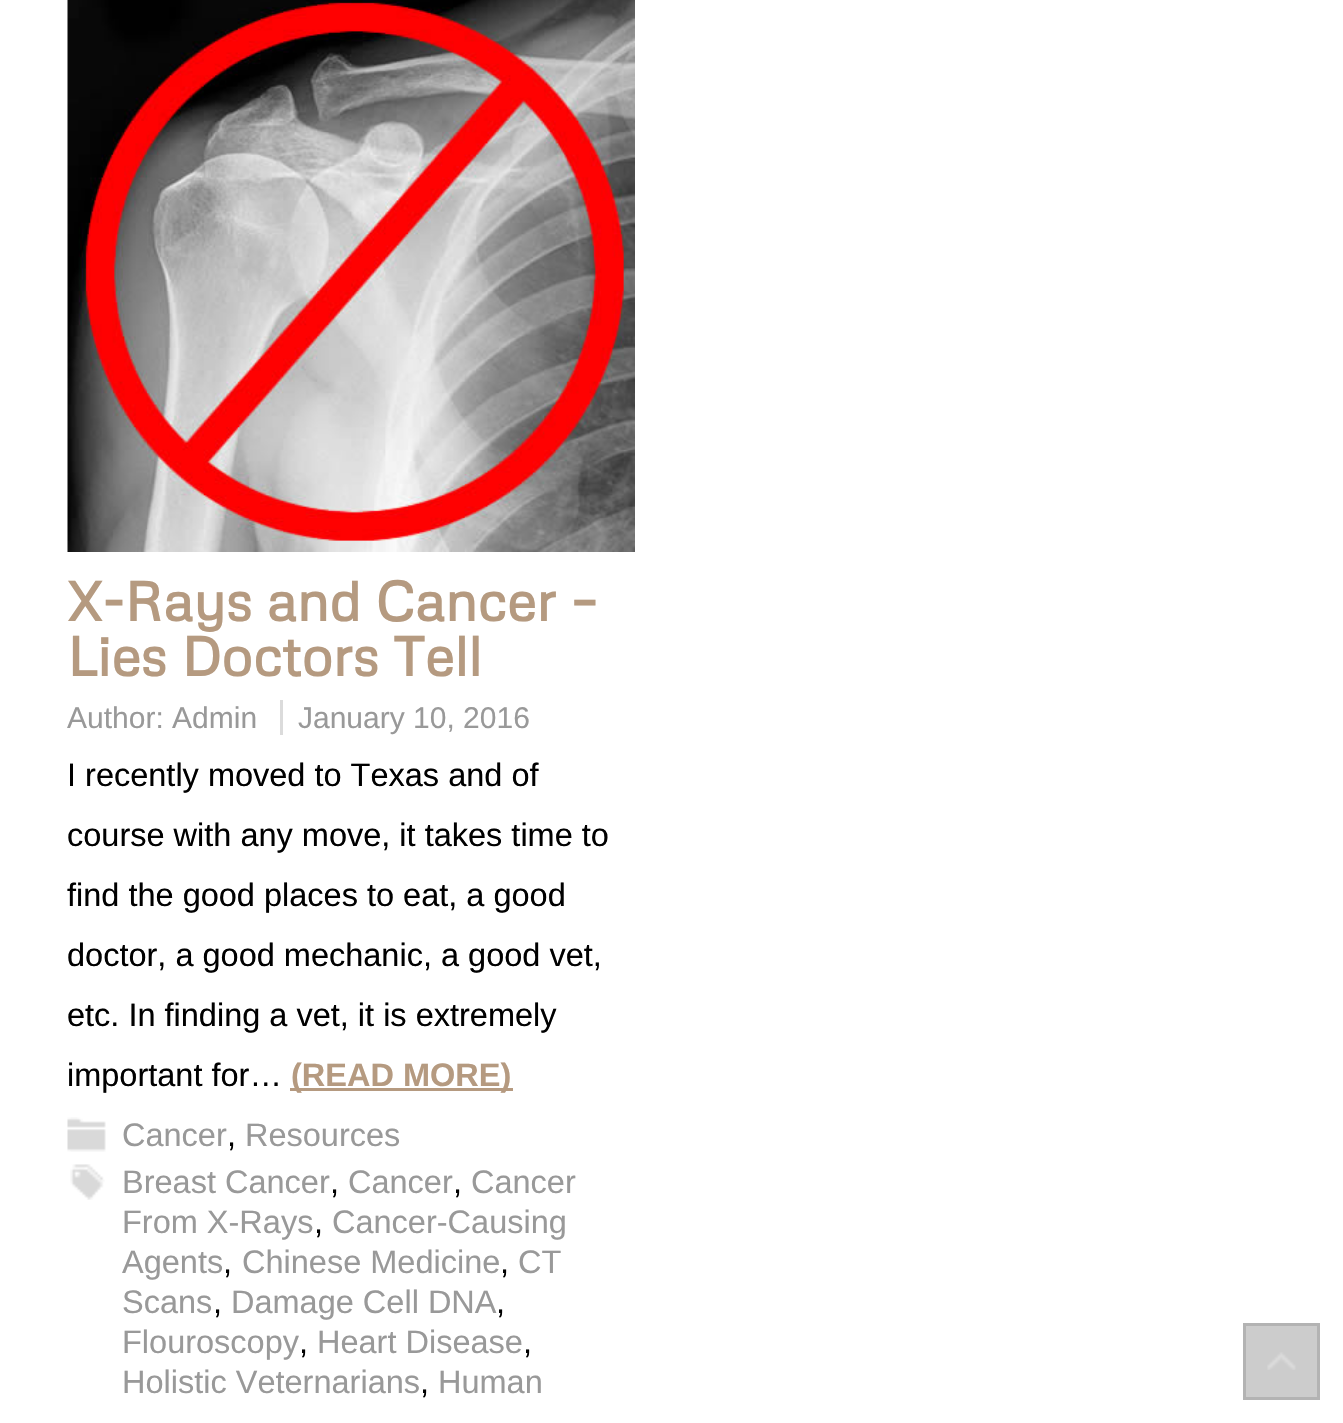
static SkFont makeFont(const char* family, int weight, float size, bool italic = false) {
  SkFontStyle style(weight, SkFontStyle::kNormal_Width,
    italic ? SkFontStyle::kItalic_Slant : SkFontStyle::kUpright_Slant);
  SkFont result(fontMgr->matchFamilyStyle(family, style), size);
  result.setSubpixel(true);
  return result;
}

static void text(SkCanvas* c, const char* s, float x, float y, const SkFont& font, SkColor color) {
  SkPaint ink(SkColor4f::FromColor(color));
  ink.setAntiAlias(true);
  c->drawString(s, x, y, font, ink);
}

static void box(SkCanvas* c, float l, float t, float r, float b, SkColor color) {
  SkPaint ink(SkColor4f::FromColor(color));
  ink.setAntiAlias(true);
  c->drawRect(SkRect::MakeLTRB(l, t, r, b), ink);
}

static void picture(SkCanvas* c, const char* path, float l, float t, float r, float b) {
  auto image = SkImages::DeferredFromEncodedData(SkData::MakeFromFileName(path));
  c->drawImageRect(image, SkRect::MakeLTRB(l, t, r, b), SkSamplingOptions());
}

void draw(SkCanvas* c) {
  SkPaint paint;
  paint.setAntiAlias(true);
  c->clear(0xffffffff);
  picture(c, "img_01.png", 67, 0, 635, 552);
  SkFont face1 = makeFont("Metrophobic", 700, 55);
  text(c, "X-Rays and Cancer –", 67, 621, face1, 0xffb59a80);
  text(c, "Lies Doctors Tell", 67, 676, face1, 0xffb59a80);
  SkFont face2 = makeFont("Liberation Sans", 400, 30);
  text(c, "Author: Admin", 67, 728, face2, 0xff999999);
  text(c, "January 10, 2016", 298, 728, face2, 0xff999999);
  box(c, 280, 700, 283, 735, 0xffdbdbdb);
  SkFont face3 = makeFont("Liberation Sans", 400, 32.5f);
  text(c, "I recently moved to Texas and of", 67, 786, face3, 0xff000000);
  text(c, "course with any move, it takes time to", 67, 846, face3, 0xff000000);
  text(c, "find the good places to eat, a good", 67, 906, face3, 0xff000000);
  text(c, "doctor, a good mechanic, a good vet,", 67, 966, face3, 0xff000000);
  text(c, "etc. In finding a vet, it is extremely", 67, 1026, face3, 0xff000000);
  text(c, "important for…", 67, 1086, face3, 0xff000000);
  box(c, 290, 1088, 513, 1091, 0xffb59a80);
  SkFont face4 = makeFont("Liberation Sans", 700, 32.5f);
  text(c, "(READ MORE)", 291, 1086, face4, 0xffb59a80);
  picture(c, "img_02.png", 67, 1117, 106, 1152);
  text(c, "Cancer", 122, 1146, face3, 0xff999999);
  text(c, ",", 227, 1146, face3, 0xff000000);
  text(c, "Resources", 245, 1146, face3, 0xff999999);
  picture(c, "img_03.png", 70, 1164, 105, 1200);
  text(c, "Breast Cancer", 122, 1193, face3, 0xff999999);
  text(c, ",", 330, 1193, face3, 0xff000000);
  text(c, "Cancer", 348, 1193, face3, 0xff999999);
  text(c, ",", 453, 1193, face3, 0xff000000);
  text(c, "Cancer", 471, 1193, face3, 0xff999999);
  text(c, "From X-Rays", 122, 1233, face3, 0xff999999);
  text(c, ",", 314, 1233, face3, 0xff000000);
  text(c, "Cancer-Causing", 332, 1233, face3, 0xff999999);
  text(c, "Agents", 122, 1273, face3, 0xff999999);
  text(c, ",", 223, 1273, face3, 0xff000000);
  text(c, "Chinese Medicine", 242, 1273, face3, 0xff999999);
  text(c, ",", 500, 1273, face3, 0xff000000);
  text(c, "CT", 518, 1273, face3, 0xff999999);
  text(c, "Scans", 122, 1313, face3, 0xff999999);
  text(c, ",", 213, 1313, face3, 0xff000000);
  text(c, "Damage Cell DNA", 231, 1313, face3, 0xff999999);
  text(c, ",", 496, 1313, face3, 0xff000000);
  text(c, "Flouroscopy", 122, 1353, face3, 0xff999999);
  text(c, ",", 299, 1353, face3, 0xff000000);
  text(c, "Heart Disease", 317, 1353, face3, 0xff999999);
  text(c, ",", 523, 1353, face3, 0xff000000);
  text(c, "Holistic Veternarians", 122, 1393, face3, 0xff999999);
  text(c, ",", 420, 1393, face3, 0xff000000);
  text(c, "Human", 438, 1393, face3, 0xff999999);
  box(c, 1246, 1326, 1317, 1397, 0xffcccccc);
  picture(c, "img_04.png", 1267, 1352, 1296, 1370);
  paint.setStyle(SkPaint::kStroke_Style);
  paint.setStrokeWidth(3);
  paint.setColor(0xffb3b3b3);
  c->drawRect(SkRect::MakeLTRB(1244.5f, 1324.5f, 1318.5f, 1398.5f), paint);
}
